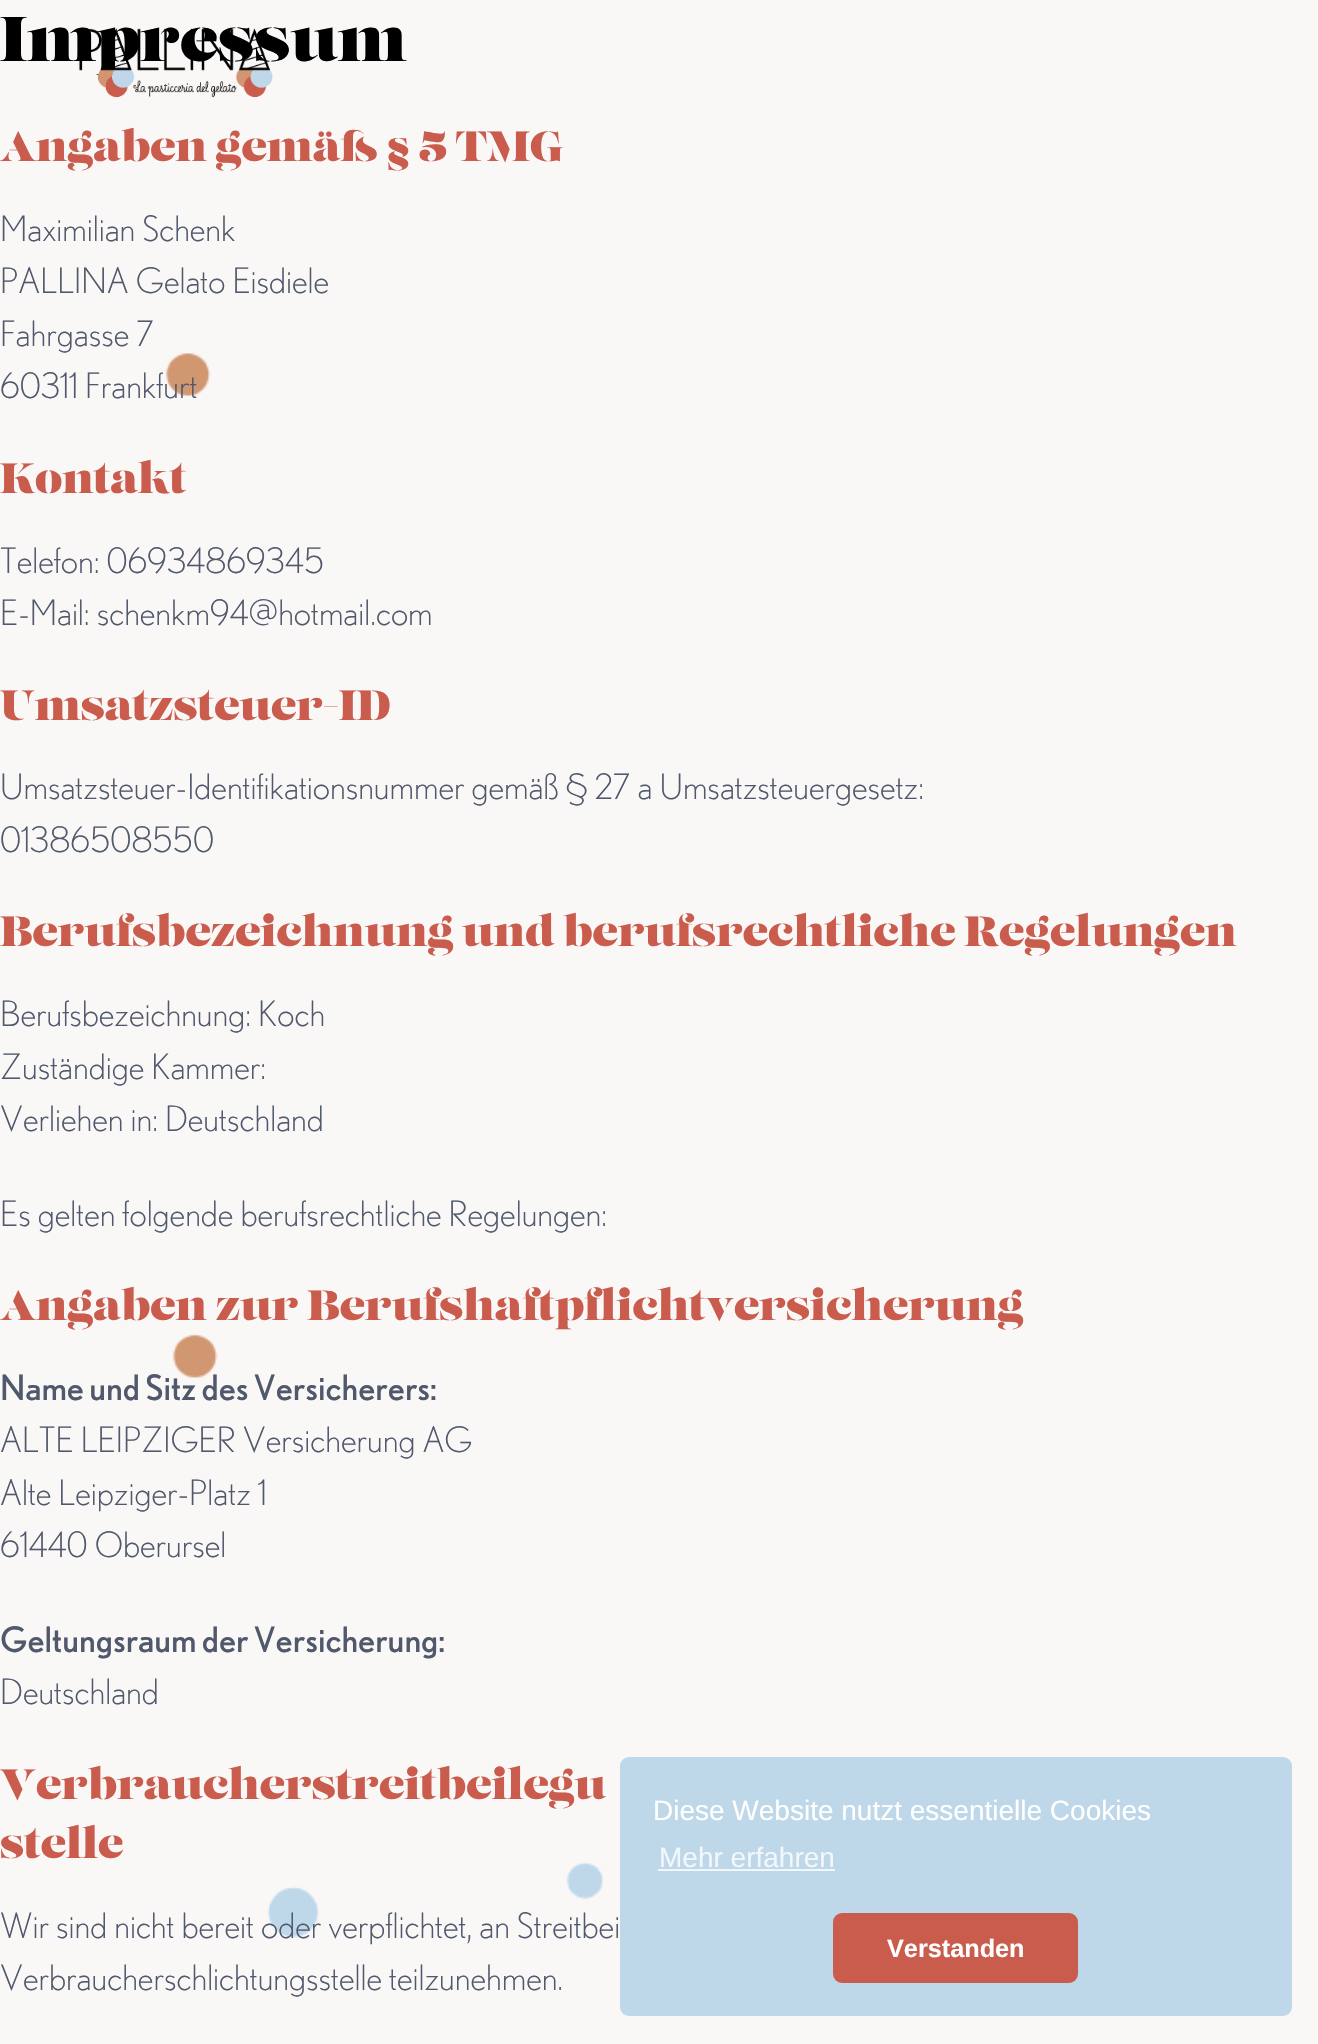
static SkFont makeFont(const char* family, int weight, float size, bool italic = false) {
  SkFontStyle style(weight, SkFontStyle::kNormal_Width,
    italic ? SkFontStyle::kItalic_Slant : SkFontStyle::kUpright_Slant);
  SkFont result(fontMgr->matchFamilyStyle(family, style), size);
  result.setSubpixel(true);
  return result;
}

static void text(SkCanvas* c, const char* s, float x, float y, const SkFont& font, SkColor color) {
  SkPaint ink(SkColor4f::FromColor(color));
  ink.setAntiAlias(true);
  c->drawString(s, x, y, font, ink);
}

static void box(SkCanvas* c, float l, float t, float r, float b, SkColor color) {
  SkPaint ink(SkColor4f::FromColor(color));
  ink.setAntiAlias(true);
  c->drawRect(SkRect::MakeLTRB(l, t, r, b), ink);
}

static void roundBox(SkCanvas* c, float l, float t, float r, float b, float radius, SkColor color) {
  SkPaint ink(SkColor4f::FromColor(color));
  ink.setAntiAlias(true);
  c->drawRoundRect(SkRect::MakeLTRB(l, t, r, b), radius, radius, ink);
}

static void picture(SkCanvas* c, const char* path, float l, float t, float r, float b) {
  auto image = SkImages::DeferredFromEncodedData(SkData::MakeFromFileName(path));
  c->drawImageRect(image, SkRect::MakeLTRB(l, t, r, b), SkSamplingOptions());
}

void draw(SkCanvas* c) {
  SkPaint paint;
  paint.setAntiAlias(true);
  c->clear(0xfffaf7f7);
  SkFont face1 = makeFont("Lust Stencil", 400, 63);
  text(c, "Impressum", 0, 61, face1, 0xff000000);
  SkFont face2 = makeFont("Lust Stencil", 400, 42);
  text(c, "Angaben gemäß § 5 TMG", 0, 161, face2, 0xffca5c4d);
  SkFont face3 = makeFont("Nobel", 300, 35);
  text(c, "Maximilian Schenk", 0, 241, face3, 0xff50596c);
  text(c, "PALLINA Gelato Eisdiele", 0, 293, face3, 0xff50596c);
  text(c, "Fahrgasse 7", 0, 346, face3, 0xff50596c);
  picture(c, "img_01.png", 165, 353, 604, 1938);
  text(c, "60311 Frankfurt", 0, 398, face3, 0xff50596c);
  text(c, "Kontakt", 0, 493, face2, 0xffca5c4d);
  text(c, "Telefon: 06934869345", 0, 573, face3, 0xff50596c);
  text(c, "E-Mail: schenkm94@hotmail.com", 0, 625, face3, 0xff50596c);
  text(c, "Umsatzsteuer-ID", 0, 720, face2, 0xffca5c4d);
  text(c, "Umsatzsteuer-Identifikationsnummer gemäß § 27 a Umsatzsteuergesetz:", 0, 799, face3, 0xff50596c);
  text(c, "01386508550", 0, 852, face3, 0xff50596c);
  text(c, "Berufsbezeichnung und berufsrechtliche Regelungen", 0, 946, face2, 0xffca5c4d);
  text(c, "Berufsbezeichnung: Koch", 0, 1026, face3, 0xff50596c);
  text(c, "Zuständige Kammer:", 0, 1079, face3, 0xff50596c);
  text(c, "Verliehen in: Deutschland", 0, 1131, face3, 0xff50596c);
  text(c, "Es gelten folgende berufsrechtliche Regelungen:", 0, 1226, face3, 0xff50596c);
  text(c, "Angaben zur Berufshaftpflichtversicherung", 0, 1320, face2, 0xffca5c4d);
  SkFont face4 = makeFont("Nobel", 400, 35);
  text(c, "Name und Sitz des Versicherers:", 0, 1400, face4, 0xff50596c);
  text(c, "ALTE LEIPZIGER Versicherung AG", 0, 1452, face3, 0xff50596c);
  text(c, "Alte Leipziger-Platz 1", 0, 1505, face3, 0xff50596c);
  text(c, "61440 Oberursel", 0, 1557, face3, 0xff50596c);
  text(c, "Geltungsraum der Versicherung:", 0, 1652, face4, 0xff50596c);
  text(c, "Deutschland", 0, 1704, face3, 0xff50596c);
  text(c, "Verbraucherstreitbeilegu", 0, 1799, face2, 0xffca5c4d);
  text(c, "stelle", 0, 1858, face2, 0xffca5c4d);
  text(c, "Wir sind nicht bereit oder verpflichtet, an Streitbei", 0, 1938, face3, 0xff50596c);
  text(c, "Verbraucherschlichtungsstelle teilzunehmen.", 0, 1990, face3, 0xff50596c);
  picture(c, "img_02.png", 78, 28, 273, 98);
  roundBox(c, 620, 1757, 1292, 2016, 9, 0xffbed8e9);
  SkFont face5 = makeFont("Liberation Sans", 400, 28);
  text(c, "Diese Website nutzt essentielle Cookies", 653, 1820, face5, 0xffffffff);
  text(c, "Mehr erfahren", 659, 1867, face5, 0xfff2f7fb);
  box(c, 658, 1869, 835, 1871, 0xfff2f7fb);
  paint.setColor(0xffca5c4d);
  c->drawRoundRect(SkRect::MakeLTRB(835, 1915, 1076, 1981), 7, 7, paint);
  paint.setStyle(SkPaint::kStroke_Style);
  paint.setStrokeWidth(4);
  c->drawRoundRect(SkRect::MakeLTRB(835, 1915, 1076, 1981), 7, 7, paint);
  SkFont face6 = makeFont("Liberation Sans", 700, 25.25f);
  text(c, "Verstanden", 887, 1957, face6, 0xffffffff);
}
